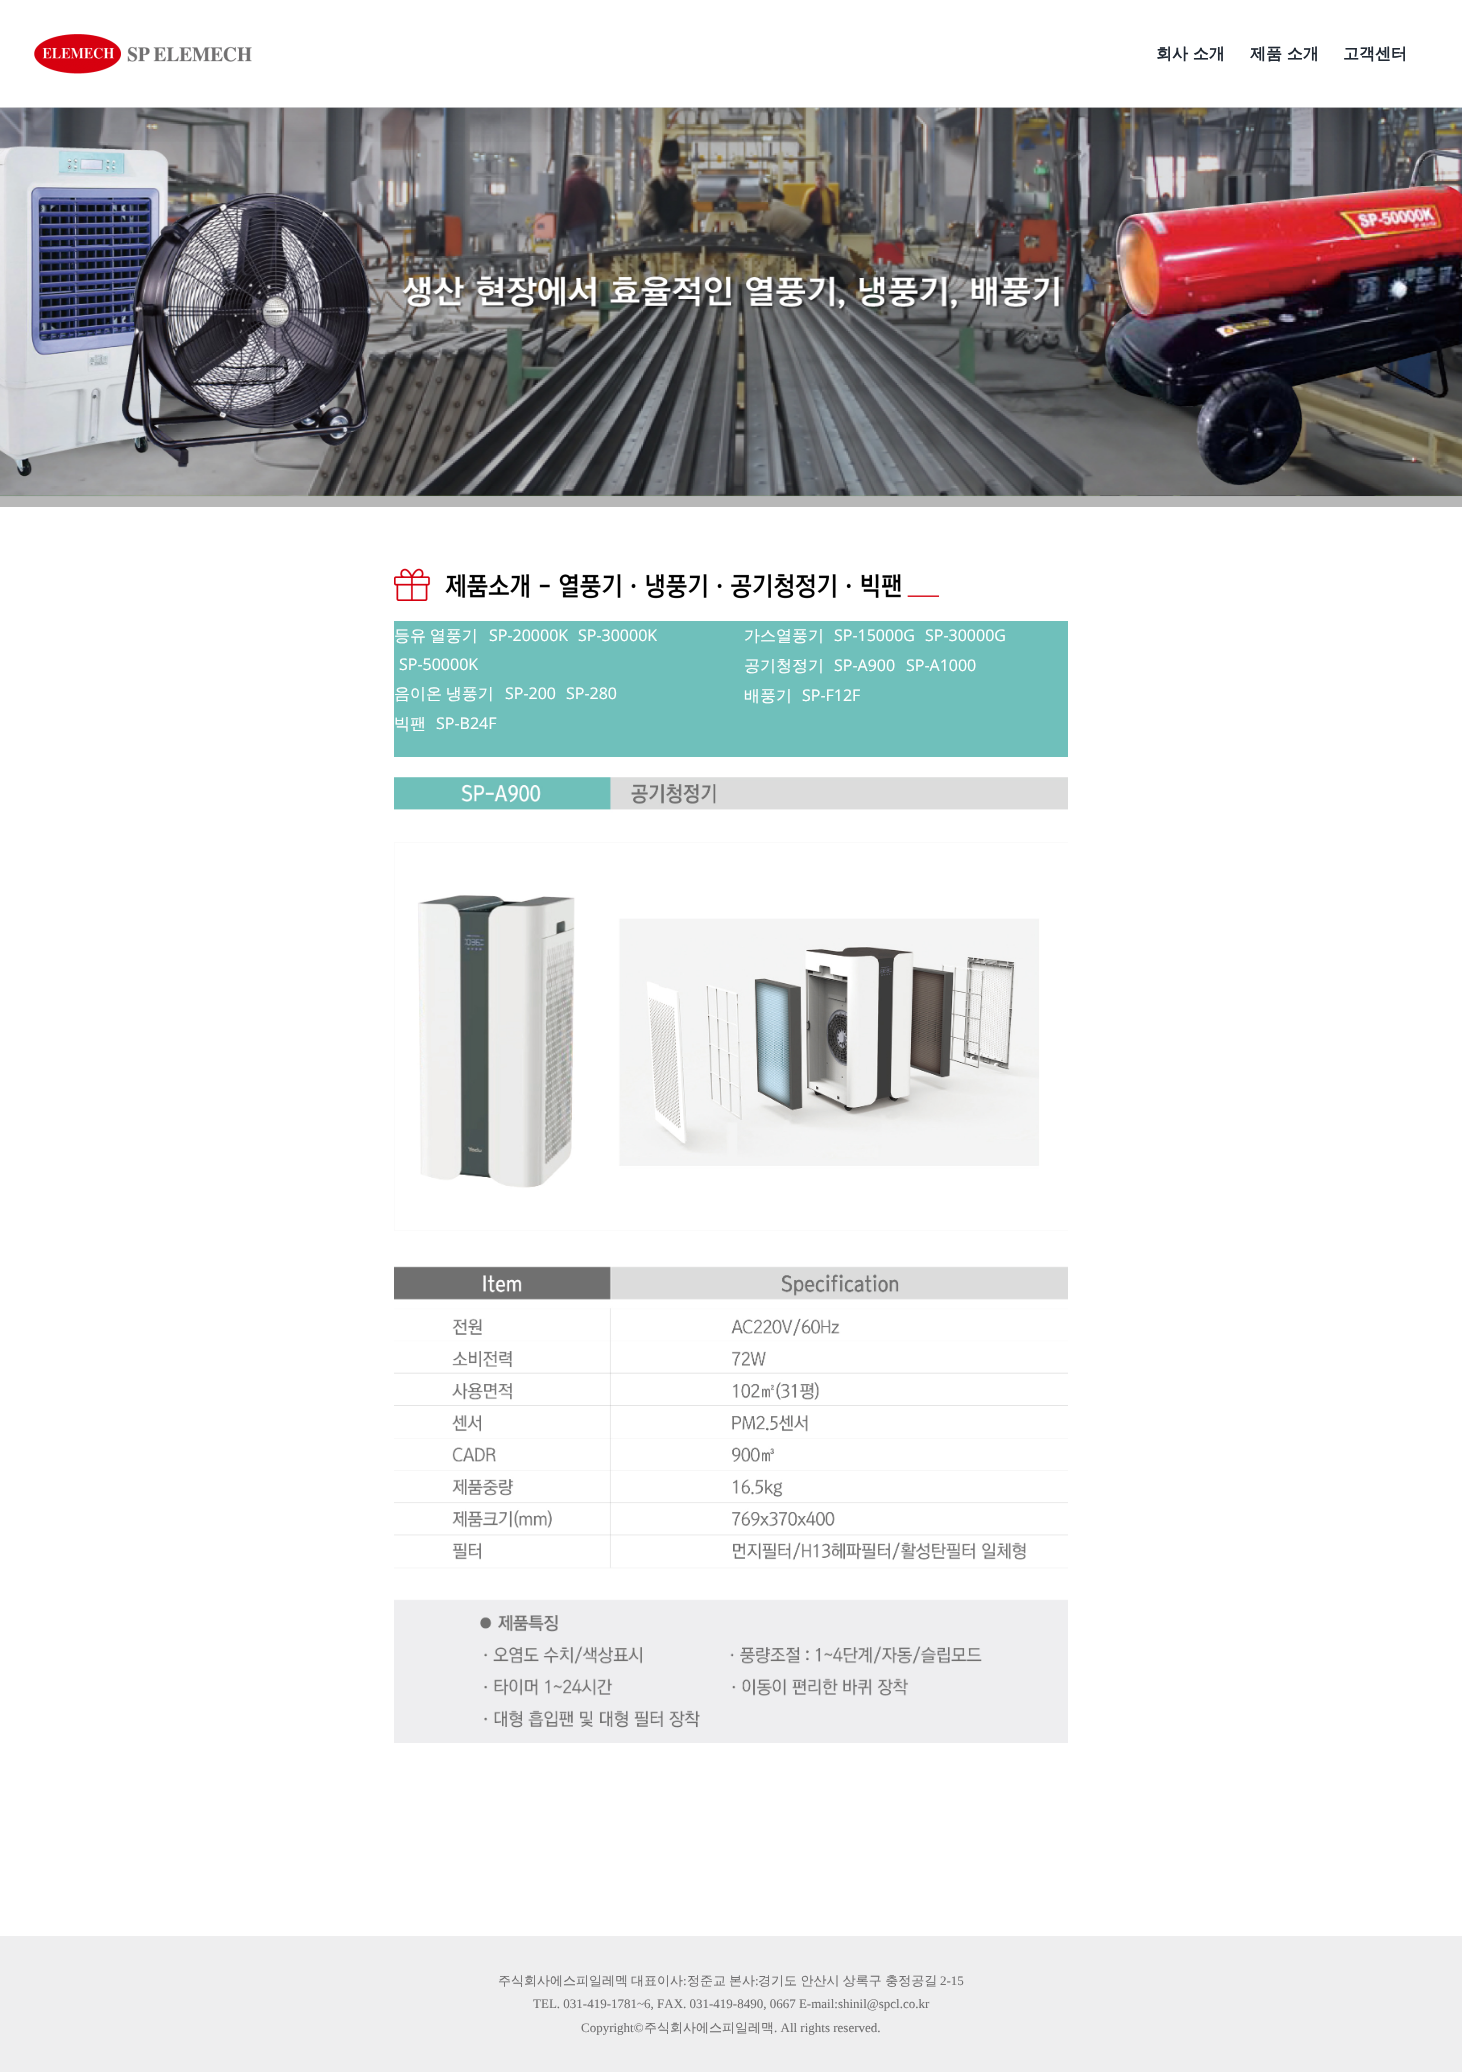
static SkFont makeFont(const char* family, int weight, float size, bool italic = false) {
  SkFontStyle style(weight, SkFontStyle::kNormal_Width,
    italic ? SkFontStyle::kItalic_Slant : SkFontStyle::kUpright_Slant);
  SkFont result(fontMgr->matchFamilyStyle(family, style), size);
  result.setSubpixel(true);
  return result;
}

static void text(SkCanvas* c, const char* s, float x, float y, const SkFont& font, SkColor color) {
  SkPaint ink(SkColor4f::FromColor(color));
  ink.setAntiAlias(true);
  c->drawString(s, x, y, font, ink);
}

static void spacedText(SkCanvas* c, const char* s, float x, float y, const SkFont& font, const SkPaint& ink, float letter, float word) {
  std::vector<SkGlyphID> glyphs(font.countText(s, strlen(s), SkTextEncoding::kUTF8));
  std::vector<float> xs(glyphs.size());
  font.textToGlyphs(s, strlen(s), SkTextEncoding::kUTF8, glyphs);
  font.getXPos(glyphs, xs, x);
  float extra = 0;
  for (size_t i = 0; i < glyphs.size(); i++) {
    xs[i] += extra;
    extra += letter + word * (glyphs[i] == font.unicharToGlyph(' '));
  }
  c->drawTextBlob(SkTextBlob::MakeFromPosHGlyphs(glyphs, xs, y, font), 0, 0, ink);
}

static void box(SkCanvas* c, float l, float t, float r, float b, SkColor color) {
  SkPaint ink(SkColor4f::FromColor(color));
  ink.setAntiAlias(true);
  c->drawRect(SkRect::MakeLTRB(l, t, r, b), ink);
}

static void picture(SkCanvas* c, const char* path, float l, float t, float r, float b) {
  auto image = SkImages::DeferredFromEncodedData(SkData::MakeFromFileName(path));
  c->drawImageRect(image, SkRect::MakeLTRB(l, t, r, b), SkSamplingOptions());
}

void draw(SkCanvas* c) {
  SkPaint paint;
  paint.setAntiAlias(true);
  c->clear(0xffffffff);
  picture(c, "img_02.png", 0, 107, 1462, 507);
  c->save();
  c->clipRect(SkRect::MakeLTRB(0, 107, 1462, 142));
  paint.setColor(0x24000000);
  paint.setMaskFilter(SkMaskFilter::MakeBlur(kNormal_SkBlurStyle, 25));
  c->drawRect(SkRect::MakeLTRB(2, 12, 1460, 115), paint);
  paint.setMaskFilter(nullptr);
  c->restore();
  picture(c, "img_01.png", 34, 34, 252, 74);
  SkFont face1 = makeFont("WenQuanYi Zen Hei", 700, 16);
  text(c, "회사 소개", 1156, 59, face1, 0xff212934);
  text(c, "제품 소개", 1250, 59, face1, 0xff212934);
  text(c, "고객센터", 1343, 59, face1, 0xff212934);
  picture(c, "img_03.png", 394, 568, 940, 601);
  box(c, 394, 621, 1068, 757, 0xff6fc0bb);
  SkFont face2 = makeFont("WenQuanYi Zen Hei", 500, 16);
  paint.setColor(0xffffffff);
  spacedText(c, "등유 열풍기", 394, 641, face2, paint, 0, -1);
  SkFont face3 = makeFont("Open Sans", 400, 16);
  text(c, "SP-20000K", 489, 641, face3, 0xffffffff);
  text(c, "SP-30000K", 578, 641, face3, 0xffffffff);
  text(c, "SP-50000K", 399, 670, face3, 0xffffffff);
  spacedText(c, "음이온 냉풍기", 394, 699, face2, paint, 0, -1);
  text(c, "SP-200", 505, 699, face3, 0xffffffff);
  text(c, "SP-280", 566, 699, face3, 0xffffffff);
  text(c, "빅팬", 394, 729, face2, 0xffffffff);
  text(c, "SP-B24F", 436, 729, face3, 0xffffffff);
  text(c, "가스열풍기", 744, 641, face2, 0xffffffff);
  text(c, "SP-15000G", 834, 641, face3, 0xffffffff);
  text(c, "SP-30000G", 925, 641, face3, 0xffffffff);
  text(c, "공기청정기", 744, 671, face2, 0xffffffff);
  text(c, "SP-A900", 834, 671, face3, 0xffffffff);
  text(c, "SP-A1000", 906, 671, face3, 0xffffffff);
  text(c, "배풍기", 744, 701, face2, 0xffffffff);
  text(c, "SP-F12F", 802, 701, face3, 0xffffffff);
  picture(c, "img_04.png", 394, 777, 1068, 1743);
  box(c, 0, 1936, 1462, 2072, 0xffeeeeef);
  SkFont face4 = makeFont("WenQuanYi Zen Hei", 500, 13);
  text(c, "주식회사에스피일레멕", 498, 1985, face4, 0xff717071);
  text(c, "대표이사 정준교", 631, 1985, face4, 0xff717071);
  text(c, "본사", 729, 1985, face4, 0xff717071);
  paint.setColor(0xff717071);
  spacedText(c, "경기도 안산시 상록구 충정공길", 758, 1985, face4, paint, 0, -0.5f);
  SkFont face5 = makeFont("Liberation Serif", 400, 13);
  text(c, "2-15", 940, 1985, face5, 0xff717071);
  text(c, ":", 683, 1985, face5, 0xff717071);
  text(c, ":", 755, 1985, face5, 0xff717071);
  text(c, "TEL. 031-419-1781~6, FAX. 031-419-8490, 0667 E-mail:shinil@spcl.co.kr", 533, 2008, face5, 0xff717071);
  text(c, "Copyright©", 581, 2032, face5, 0xff717071);
  text(c, "주식회사에스피일레맥", 644, 2032, face4, 0xff717071);
  text(c, ". All rights reserved.", 774, 2032, face5, 0xff717071);
}
